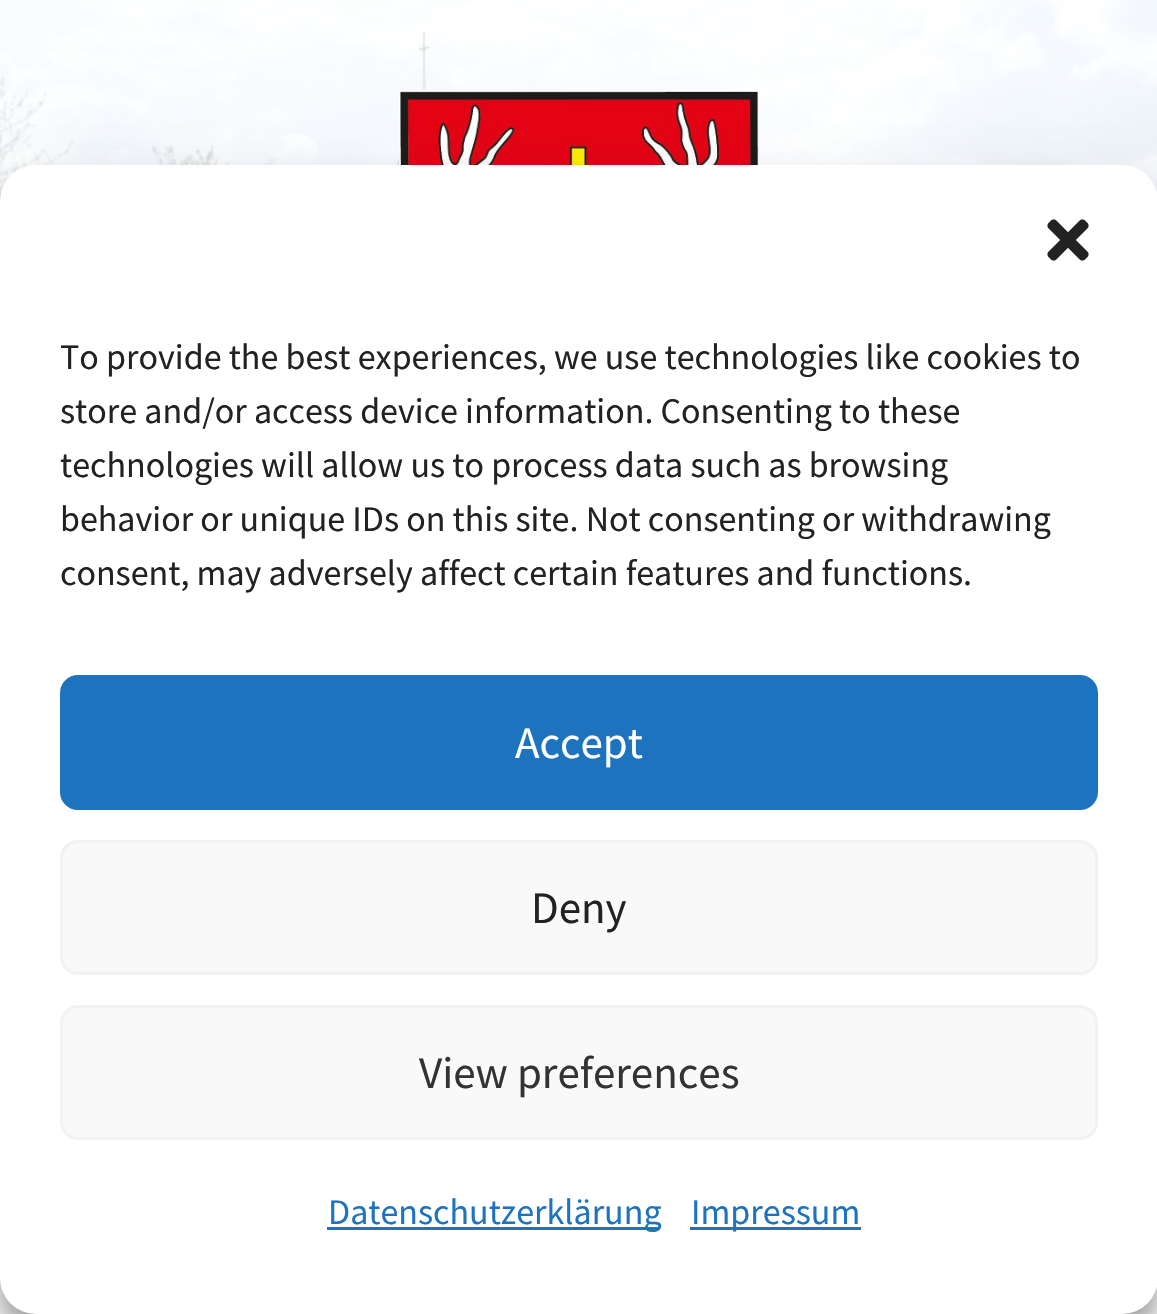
static SkFont makeFont(const char* family, int weight, float size, bool italic = false) {
  SkFontStyle style(weight, SkFontStyle::kNormal_Width,
    italic ? SkFontStyle::kItalic_Slant : SkFontStyle::kUpright_Slant);
  SkFont result(fontMgr->matchFamilyStyle(family, style), size);
  result.setSubpixel(true);
  return result;
}

static void text(SkCanvas* c, const char* s, float x, float y, const SkFont& font, SkColor color) {
  SkPaint ink(SkColor4f::FromColor(color));
  ink.setAntiAlias(true);
  c->drawString(s, x, y, font, ink);
}

static void box(SkCanvas* c, float l, float t, float r, float b, SkColor color) {
  SkPaint ink(SkColor4f::FromColor(color));
  ink.setAntiAlias(true);
  c->drawRect(SkRect::MakeLTRB(l, t, r, b), ink);
}

static void roundBox(SkCanvas* c, float l, float t, float r, float b, float radius, SkColor color) {
  SkPaint ink(SkColor4f::FromColor(color));
  ink.setAntiAlias(true);
  c->drawRoundRect(SkRect::MakeLTRB(l, t, r, b), radius, radius, ink);
}

static void picture(SkCanvas* c, const char* path, float l, float t, float r, float b) {
  auto image = SkImages::DeferredFromEncodedData(SkData::MakeFromFileName(path));
  c->drawImageRect(image, SkRect::MakeLTRB(l, t, r, b), SkSamplingOptions());
}

void draw(SkCanvas* c) {
  SkPaint paint;
  paint.setAntiAlias(true);
  c->clear(0xffffffff);
  picture(c, "img_01.png", 0, 0, 1157, 201);
  picture(c, "img_02.png", 399, 90, 759, 165);
  paint.setColor(0x3b000000);
  paint.setMaskFilter(SkMaskFilter::MakeBlur(kNormal_SkBlurStyle, 9));
  c->drawRoundRect(SkRect::MakeLTRB(0, 183, 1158, 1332), 36, 36, paint);
  paint.setMaskFilter(nullptr);
  paint.setColor(0x30000000);
  paint.setMaskFilter(SkMaskFilter::MakeBlur(kNormal_SkBlurStyle, 30));
  c->drawRoundRect(SkRect::MakeLTRB(0, 195, 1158, 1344), 36, 36, paint);
  paint.setMaskFilter(nullptr);
  roundBox(c, 0, 165, 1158, 1314, 36, 0xffffffff);
  picture(c, "img_03.png", 1047, 219, 1089, 261);
  SkFont face1 = makeFont("Source Sans Pro", 400, 36);
  text(c, "To provide the best experiences, we use technologies like cookies to", 60, 369, face1, 0xff222222);
  text(c, "store and/or access device information. Consenting to these", 60, 423, face1, 0xff222222);
  text(c, "technologies will allow us to process data such as browsing", 60, 477, face1, 0xff222222);
  text(c, "behavior or unique IDs on this site. Not consenting or withdrawing", 60, 531, face1, 0xff222222);
  text(c, "consent, may adversely affect certain features and functions.", 60, 585, face1, 0xff222222);
  paint.setColor(0xff1e73be);
  c->drawRoundRect(SkRect::MakeLTRB(61.5f, 676.5f, 1096.5f, 808.5f), 16.5f, 16.5f, paint);
  paint.setStyle(SkPaint::kStroke_Style);
  paint.setStrokeWidth(3);
  c->drawRoundRect(SkRect::MakeLTRB(61.5f, 676.5f, 1096.5f, 808.5f), 16.5f, 16.5f, paint);
  SkFont face2 = makeFont("Source Sans Pro", 400, 45);
  text(c, "Accept", 515, 758, face2, 0xffffffff);
  paint.setStyle(SkPaint::kFill_Style);
  paint.setColor(0xfff9f9f9);
  c->drawRoundRect(SkRect::MakeLTRB(61.5f, 841.5f, 1096.5f, 973.5f), 16.5f, 16.5f, paint);
  paint.setStyle(SkPaint::kStroke_Style);
  paint.setColor(0xfff2f2f2);
  c->drawRoundRect(SkRect::MakeLTRB(61.5f, 841.5f, 1096.5f, 973.5f), 16.5f, 16.5f, paint);
  text(c, "Deny", 531, 923, face2, 0xff222222);
  paint.setStyle(SkPaint::kFill_Style);
  paint.setColor(0xfff9f9f9);
  c->drawRoundRect(SkRect::MakeLTRB(61.5f, 1006.5f, 1096.5f, 1138.5f), 16.5f, 16.5f, paint);
  paint.setStyle(SkPaint::kStroke_Style);
  paint.setColor(0xfff2f2f2);
  c->drawRoundRect(SkRect::MakeLTRB(61.5f, 1006.5f, 1096.5f, 1138.5f), 16.5f, 16.5f, paint);
  text(c, "View preferences", 419, 1088, face2, 0xff333333);
  box(c, 327, 1227, 660, 1230, 0xff1e73be);
  text(c, "Datenschutzerklärung", 328, 1224, face1, 0xff1e73be);
  box(c, 690, 1227, 861, 1230, 0xff1e73be);
  text(c, "Impressum", 691, 1224, face1, 0xff1e73be);
}
